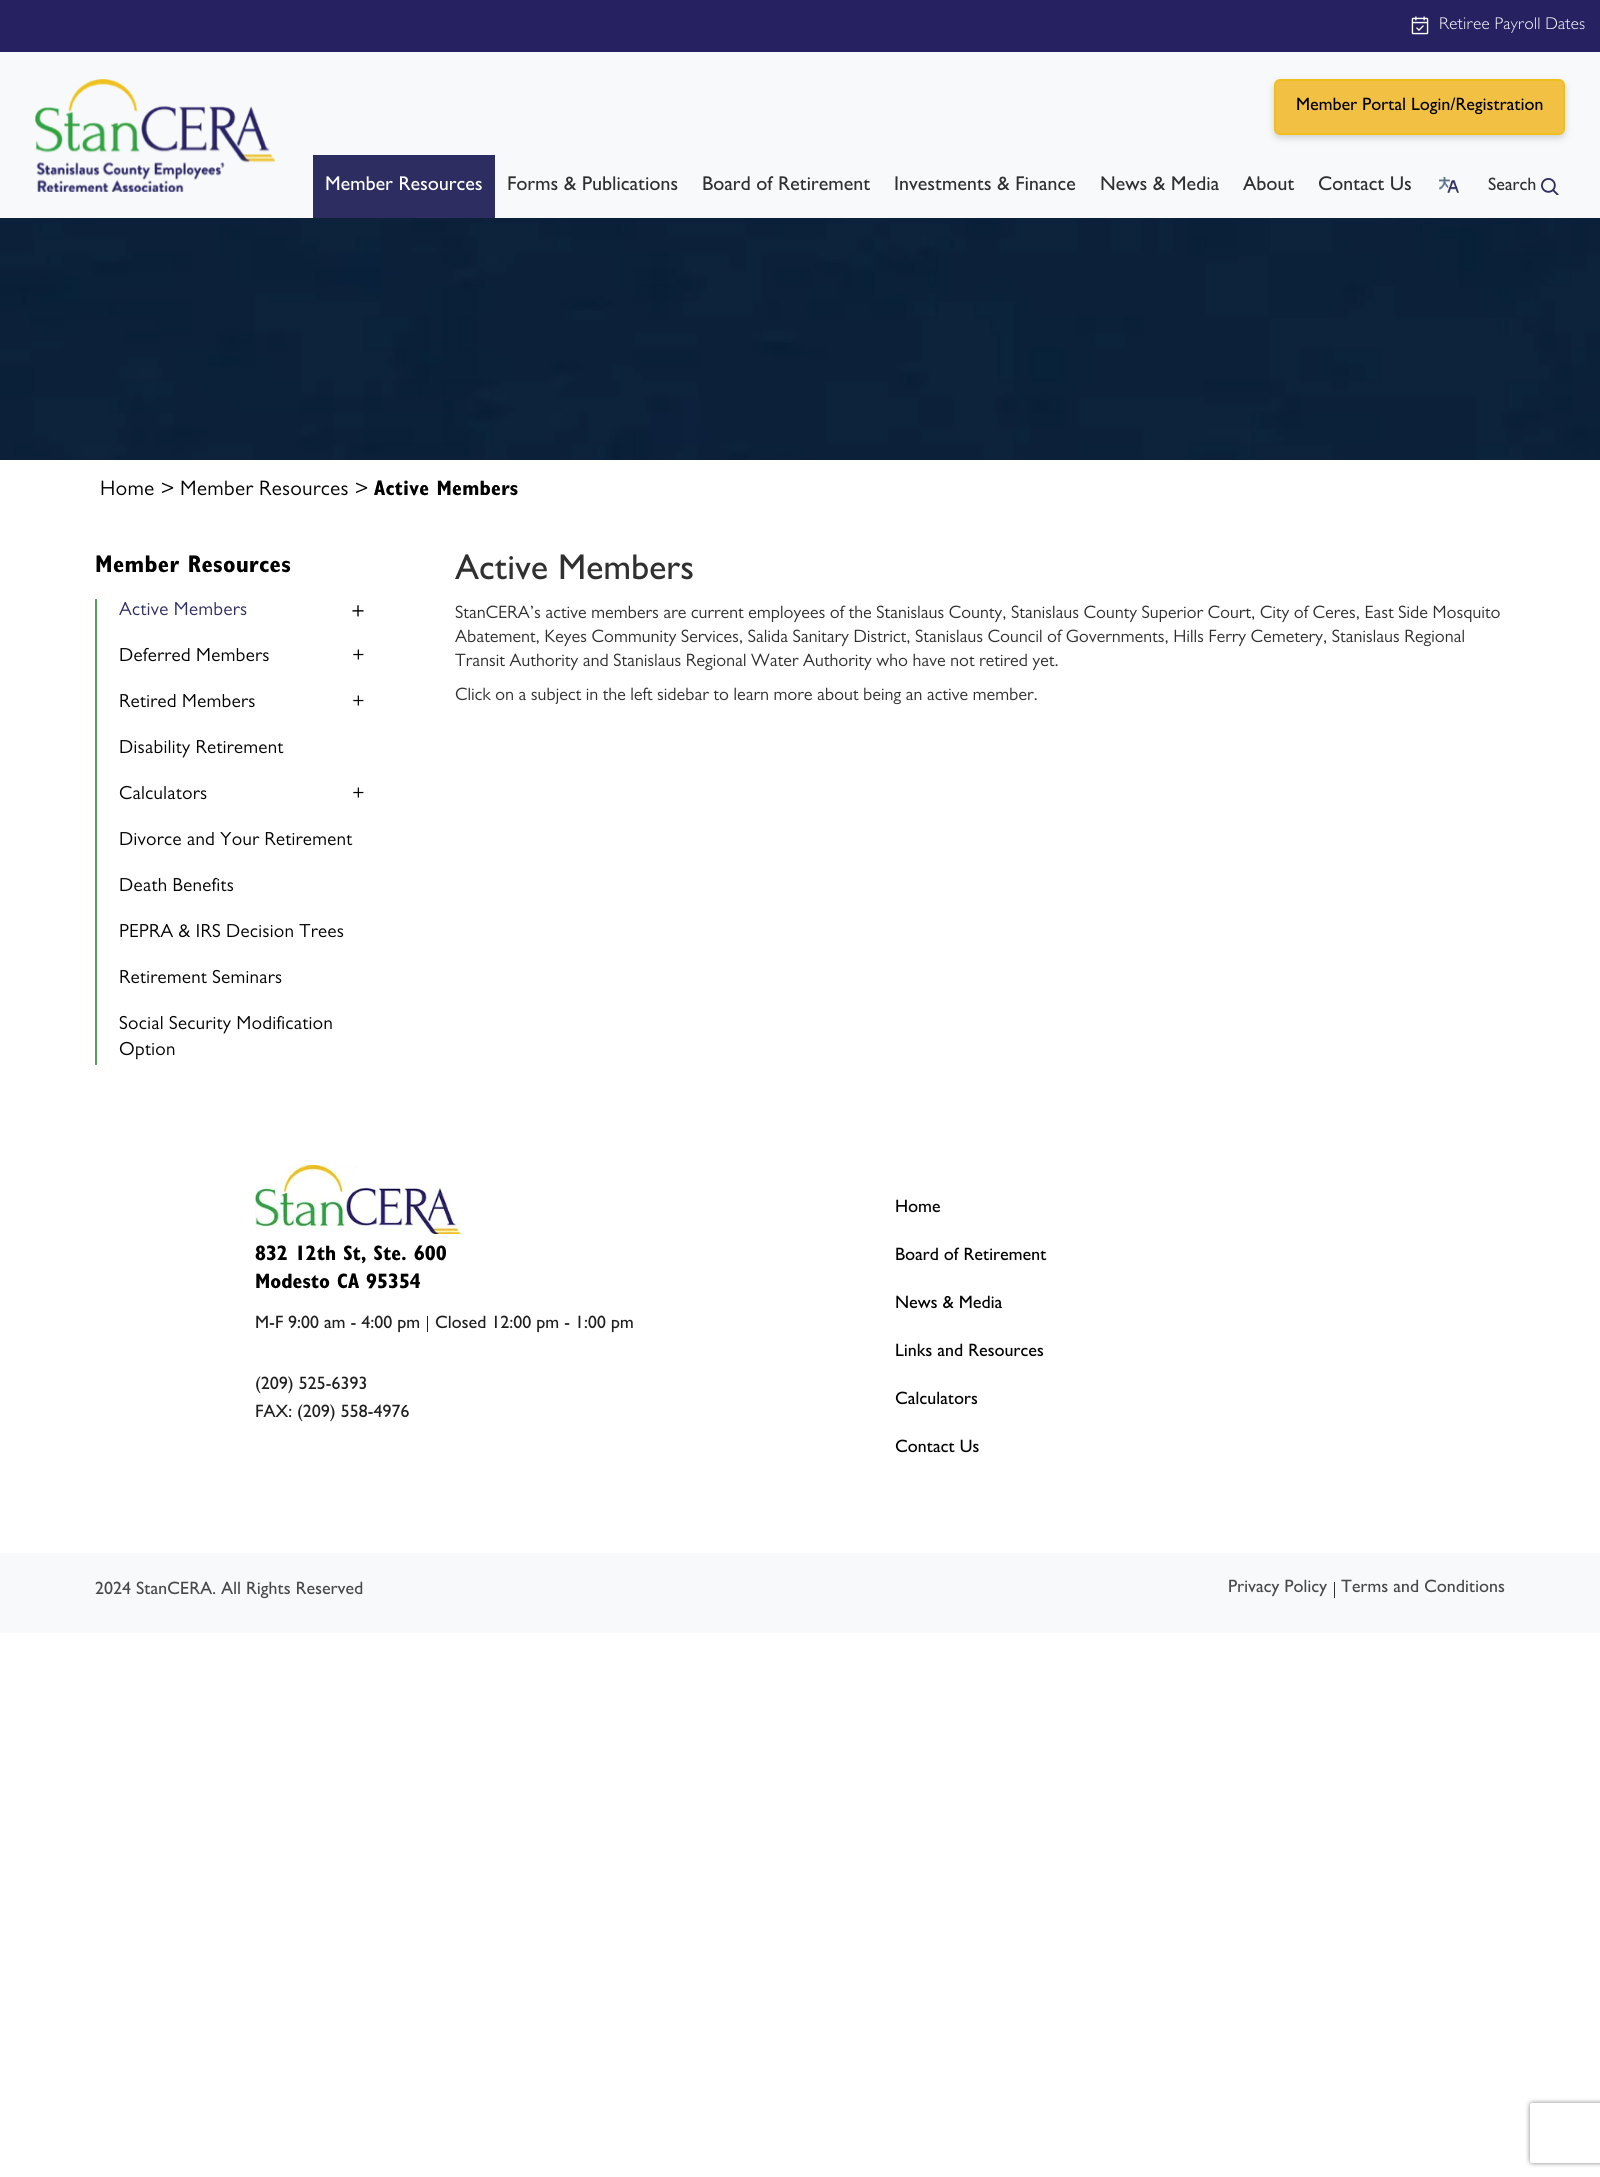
static SkFont makeFont(const char* family, int weight, float size, bool italic = false) {
  SkFontStyle style(weight, SkFontStyle::kNormal_Width,
    italic ? SkFontStyle::kItalic_Slant : SkFontStyle::kUpright_Slant);
  SkFont result(fontMgr->matchFamilyStyle(family, style), size);
  result.setSubpixel(true);
  return result;
}

static void text(SkCanvas* c, const char* s, float x, float y, const SkFont& font, SkColor color) {
  SkPaint ink(SkColor4f::FromColor(color));
  ink.setAntiAlias(true);
  c->drawString(s, x, y, font, ink);
}

static void spacedText(SkCanvas* c, const char* s, float x, float y, const SkFont& font, const SkPaint& ink, float letter, float word) {
  std::vector<SkGlyphID> glyphs(font.countText(s, strlen(s), SkTextEncoding::kUTF8));
  std::vector<float> xs(glyphs.size());
  font.textToGlyphs(s, strlen(s), SkTextEncoding::kUTF8, glyphs);
  font.getXPos(glyphs, xs, x);
  float extra = 0;
  for (size_t i = 0; i < glyphs.size(); i++) {
    xs[i] += extra;
    extra += letter + word * (glyphs[i] == font.unicharToGlyph(' '));
  }
  c->drawTextBlob(SkTextBlob::MakeFromPosHGlyphs(glyphs, xs, y, font), 0, 0, ink);
}

static void box(SkCanvas* c, float l, float t, float r, float b, SkColor color) {
  SkPaint ink(SkColor4f::FromColor(color));
  ink.setAntiAlias(true);
  c->drawRect(SkRect::MakeLTRB(l, t, r, b), ink);
}

static void picture(SkCanvas* c, const char* path, float l, float t, float r, float b) {
  auto image = SkImages::DeferredFromEncodedData(SkData::MakeFromFileName(path));
  c->drawImageRect(image, SkRect::MakeLTRB(l, t, r, b), SkSamplingOptions());
}

void draw(SkCanvas* c) {
  SkPaint paint;
  paint.setAntiAlias(true);
  c->clear(0xffffffff);
  box(c, 0, 0, 1600, 52, 0xff262262);
  picture(c, "img_01.png", 1411, 16, 1429, 35);
  picture(c, "img_02.png", 1440, 17, 1585, 33);
  box(c, 0, 52, 1600, 218, 0xfff8f9fa);
  picture(c, "img_03.png", 35, 79, 275, 192);
  paint.setColor(0x29000000);
  paint.setMaskFilter(SkMaskFilter::MakeBlur(kNormal_SkBlurStyle, 3));
  c->drawRoundRect(SkRect::MakeLTRB(1274, 82, 1565, 138), 6, 6, paint);
  paint.setMaskFilter(nullptr);
  paint.setColor(0xfff2c144);
  c->drawRoundRect(SkRect::MakeLTRB(1275, 80, 1564, 134), 5, 5, paint);
  paint.setStyle(SkPaint::kStroke_Style);
  paint.setStrokeWidth(2);
  paint.setColor(0xffefbf1e);
  c->drawRoundRect(SkRect::MakeLTRB(1275, 80, 1564, 134), 5, 5, paint);
  picture(c, "img_04.png", 1297, 97, 1543, 115);
  box(c, 313, 155, 495, 218, 0xff2d2d62);
  picture(c, "img_05.png", 326, 176, 482, 191);
  picture(c, "img_06.png", 508, 176, 678, 191);
  picture(c, "img_07.png", 703, 176, 870, 191);
  picture(c, "img_08.png", 895, 176, 1076, 191);
  picture(c, "img_09.png", 1101, 176, 1219, 191);
  picture(c, "img_10.png", 1243, 176, 1294, 191);
  picture(c, "img_11.png", 1319, 176, 1411, 191);
  picture(c, "img_12.png", 1439, 177, 1459, 193);
  picture(c, "img_13.png", 1488, 177, 1536, 191);
  picture(c, "img_14.png", 1541, 178, 1559, 195);
  picture(c, "img_15.png", 0, 218, 1600, 460);
  picture(c, "img_16.png", 101, 480, 154, 496);
  picture(c, "img_17.png", 162, 482, 174, 493);
  picture(c, "img_18.png", 181, 480, 348, 496);
  picture(c, "img_17.png", 356, 482, 368, 493);
  SkFont face1 = makeFont("Gill Sans", 700, 21);
  paint.setStyle(SkPaint::kFill_Style);
  paint.setColor(0xff000000);
  spacedText(c, "Active Members", 374, 495, face1, paint, 0.25f, 0);
  SkFont face2 = makeFont("Gill Sans", 700, 24);
  spacedText(c, "Member Resources", 95, 572, face2, paint, 0.4f, 0);
  box(c, 95, 599, 97, 1065, 0xff599e53);
  picture(c, "img_19.png", 119, 601, 247, 616);
  picture(c, "img_20.png", 352, 605, 364, 617);
  picture(c, "img_21.png", 120, 647, 269, 662);
  picture(c, "img_22.png", 353, 649, 364, 660);
  picture(c, "img_23.png", 120, 694, 255, 708);
  picture(c, "img_22.png", 353, 695, 364, 706);
  picture(c, "img_24.png", 120, 740, 284, 758);
  picture(c, "img_25.png", 119, 785, 207, 800);
  picture(c, "img_22.png", 353, 787, 364, 798);
  picture(c, "img_26.png", 120, 832, 353, 846);
  picture(c, "img_27.png", 120, 877, 234, 892);
  picture(c, "img_28.png", 120, 923, 344, 938);
  picture(c, "img_29.png", 120, 969, 282, 984);
  picture(c, "img_30.png", 119, 1015, 332, 1034);
  picture(c, "img_31.png", 119, 1041, 175, 1060);
  picture(c, "img_32.png", 455, 554, 693, 580);
  picture(c, "img_33.png", 455, 605, 1500, 623);
  picture(c, "img_34.png", 455, 629, 1464, 647);
  picture(c, "img_35.png", 455, 653, 1058, 671);
  picture(c, "img_36.png", 455, 687, 1037, 705);
  picture(c, "img_37.png", 255, 1165, 461, 1234);
  text(c, "832 12th St, Ste. 600", 255, 1260, face1, 0xff000000);
  text(c, "Modesto CA 95354", 255, 1288, face1, 0xff000000);
  picture(c, "img_38.png", 256, 1315, 283, 1328);
  picture(c, "img_39.png", 288, 1315, 420, 1333);
  box(c, 427, 1316, 428, 1332, 0xff1f1f1f);
  picture(c, "img_40.png", 435, 1315, 633, 1333);
  picture(c, "img_41.png", 256, 1376, 367, 1394);
  picture(c, "img_42.png", 256, 1404, 292, 1418);
  picture(c, "img_43.png", 298, 1404, 409, 1422);
  picture(c, "img_44.png", 896, 1199, 940, 1213);
  picture(c, "img_45.png", 896, 1247, 1047, 1261);
  picture(c, "img_46.png", 896, 1295, 1002, 1309);
  picture(c, "img_47.png", 896, 1343, 1044, 1357);
  picture(c, "img_48.png", 895, 1391, 978, 1405);
  picture(c, "img_49.png", 895, 1439, 979, 1453);
  box(c, 0, 1553, 1600, 1633, 0xfff8f9fa);
  picture(c, "img_50.png", 95, 1581, 363, 1599);
  picture(c, "img_51.png", 1229, 1579, 1327, 1597);
  box(c, 1334, 1582, 1335, 1598, 0xff303030);
  picture(c, "img_52.png", 1341, 1579, 1505, 1593);
  c->save();
  c->clipPath(SkPathBuilder(SkPathFillType::kEvenOdd).moveTo(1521, 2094).lineTo(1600, 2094).lineTo(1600, 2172).lineTo(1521, 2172).close().moveTo(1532, 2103).lineTo(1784, 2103).cubicTo(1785, 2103, 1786, 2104, 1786, 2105).lineTo(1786, 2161).cubicTo(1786, 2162, 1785, 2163, 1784, 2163).lineTo(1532, 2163).cubicTo(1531, 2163, 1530, 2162, 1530, 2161).lineTo(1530, 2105).cubicTo(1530, 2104, 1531, 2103, 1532, 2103).close().detach(), true);
  paint.setColor(0xff808080);
  paint.setMaskFilter(SkMaskFilter::MakeBlur(kNormal_SkBlurStyle, 2.5f));
  c->drawRoundRect(SkRect::MakeLTRB(1530, 2103, 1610, 2163), 2, 2, paint);
  paint.setMaskFilter(nullptr);
  c->restore();
}
